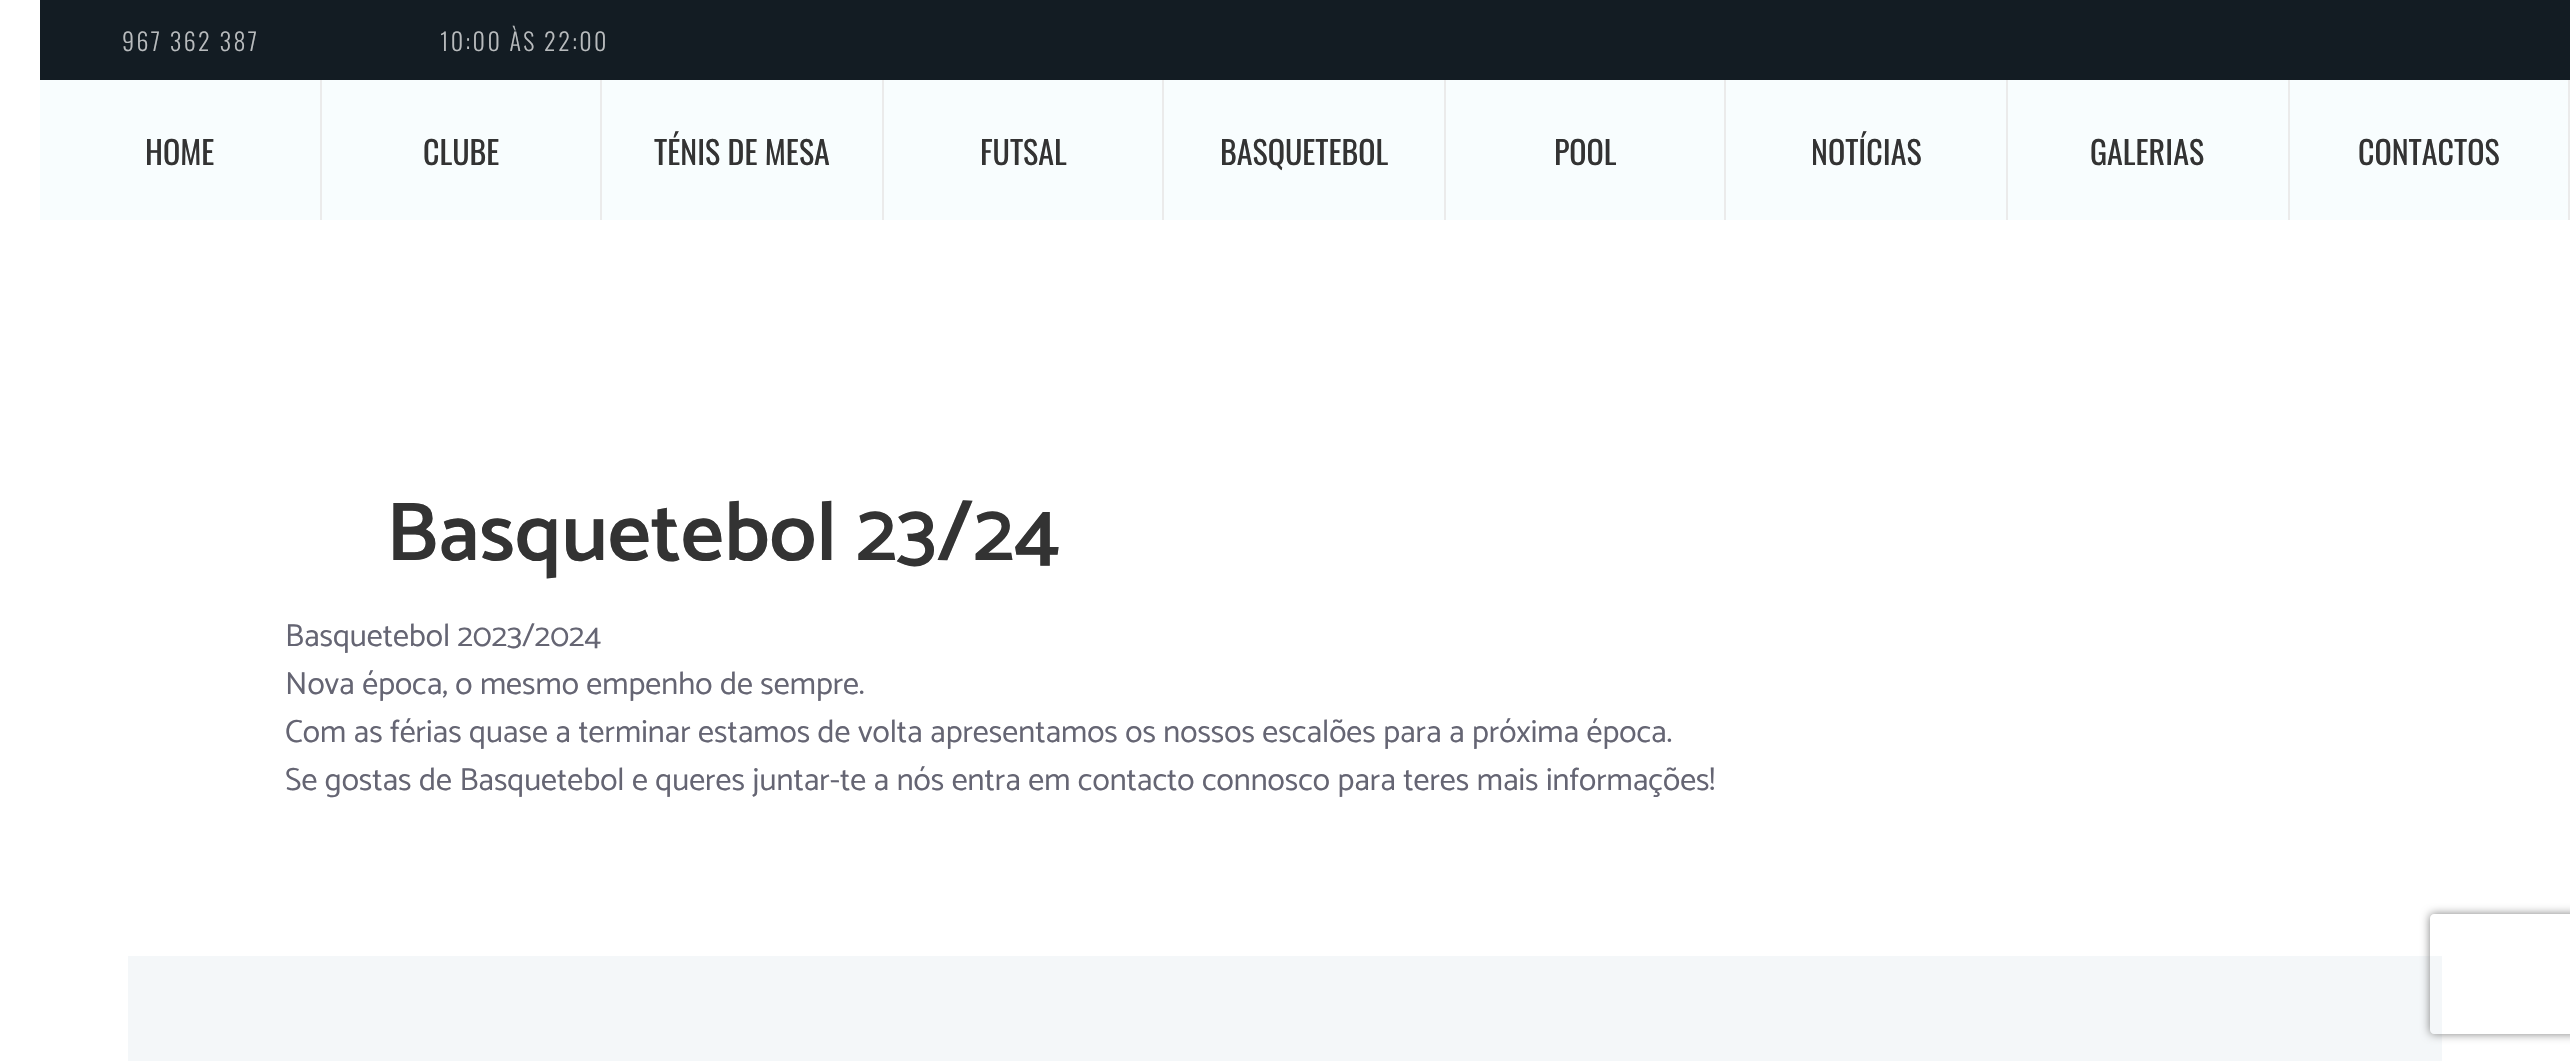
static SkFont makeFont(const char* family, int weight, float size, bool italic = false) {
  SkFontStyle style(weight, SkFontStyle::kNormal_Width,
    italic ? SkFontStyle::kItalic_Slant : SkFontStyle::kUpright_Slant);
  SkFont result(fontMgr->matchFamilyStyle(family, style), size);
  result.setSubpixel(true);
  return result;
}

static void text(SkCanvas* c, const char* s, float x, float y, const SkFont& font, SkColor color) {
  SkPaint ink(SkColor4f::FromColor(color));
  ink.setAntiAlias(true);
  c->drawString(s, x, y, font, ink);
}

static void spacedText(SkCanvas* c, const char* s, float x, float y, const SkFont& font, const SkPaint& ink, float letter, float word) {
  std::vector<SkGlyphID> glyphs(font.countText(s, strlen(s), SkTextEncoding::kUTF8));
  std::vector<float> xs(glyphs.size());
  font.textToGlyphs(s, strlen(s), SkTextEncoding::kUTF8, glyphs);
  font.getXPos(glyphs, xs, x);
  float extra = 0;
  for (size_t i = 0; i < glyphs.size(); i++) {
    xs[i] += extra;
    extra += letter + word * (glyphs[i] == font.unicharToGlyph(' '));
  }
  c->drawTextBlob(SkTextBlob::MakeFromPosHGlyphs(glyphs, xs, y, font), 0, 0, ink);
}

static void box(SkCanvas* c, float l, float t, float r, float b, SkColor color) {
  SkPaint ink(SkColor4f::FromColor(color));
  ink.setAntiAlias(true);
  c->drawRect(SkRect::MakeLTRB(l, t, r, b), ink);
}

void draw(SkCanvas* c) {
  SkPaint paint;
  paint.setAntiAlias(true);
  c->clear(0xffffffff);
  box(c, 40, 0, 2570, 80, 0xff131c23);
  SkFont face1 = makeFont("Oswald", 300, 24);
  paint.setColor(0xffb8bbbd);
  spacedText(c, "967 362 387", 122, 51, face1, paint, 2.4f, 0);
  spacedText(c, "10:00 ÀS 22:00", 440, 51, face1, paint, 2.4f, 0);
  box(c, 40, 80, 2568, 220, 0xfff8fdfe);
  box(c, 320, 80, 322, 220, 0xffebebeb);
  SkFont face2 = makeFont("Oswald", 400, 32);
  text(c, "HOME", 145, 165, face2, 0xff333333);
  box(c, 600, 80, 602, 220, 0xffebebeb);
  text(c, "CLUBE", 423, 165, face2, 0xff333333);
  box(c, 882, 80, 884, 220, 0xffebebeb);
  text(c, "TÉNIS DE MESA", 654, 165, face2, 0xff333333);
  box(c, 1162, 80, 1164, 220, 0xffebebeb);
  text(c, "FUTSAL", 980, 165, face2, 0xff333333);
  box(c, 1444, 80, 1446, 220, 0xffebebeb);
  text(c, "BASQUETEBOL", 1220, 165, face2, 0xff333333);
  box(c, 1724, 80, 1726, 220, 0xffebebeb);
  text(c, "POOL", 1554, 165, face2, 0xff333333);
  box(c, 2006, 80, 2008, 220, 0xffebebeb);
  text(c, "NOTÍCIAS", 1811, 165, face2, 0xff333333);
  box(c, 2288, 80, 2290, 220, 0xffebebeb);
  text(c, "GALERIAS", 2090, 165, face2, 0xff333333);
  box(c, 2568, 80, 2570, 220, 0xffebebeb);
  text(c, "CONTACTOS", 2358, 165, face2, 0xff333333);
  SkFont face3 = makeFont("Catamaran", 600, 84);
  text(c, "Basquetebol 23/24", 386, 560, face3, 0xff333333);
  SkFont face4 = makeFont("Catamaran", 400, 32);
  text(c, "Basquetebol 2023/2024", 285, 646, face4, 0xff656573);
  text(c, "Nova época, o mesmo empenho de sempre.", 285, 694, face4, 0xff656573);
  text(c, "Com as férias quase a terminar estamos de volta apresentamos os nossos escalões para a próxima época.", 285, 742, face4, 0xff656573);
  text(c, "Se gostas de Basquetebol e queres juntar-te a nós entra em contacto connosco para teres mais informações!", 285, 790, face4, 0xff656573);
  box(c, 128, 956, 2442, 1061, 0xfff4f7f9);
  c->save();
  c->clipPath(SkPathBuilder(SkPathFillType::kEvenOdd).moveTo(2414, 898).lineTo(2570, 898).lineTo(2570, 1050).lineTo(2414, 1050).close().moveTo(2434, 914).lineTo(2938, 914).cubicTo(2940, 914, 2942, 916, 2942, 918).lineTo(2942, 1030).cubicTo(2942, 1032, 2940, 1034, 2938, 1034).lineTo(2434, 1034).cubicTo(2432, 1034, 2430, 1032, 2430, 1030).lineTo(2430, 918).cubicTo(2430, 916, 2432, 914, 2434, 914).close().detach(), true);
  paint.setColor(0xff808080);
  paint.setMaskFilter(SkMaskFilter::MakeBlur(kNormal_SkBlurStyle, 5));
  c->drawRoundRect(SkRect::MakeLTRB(2430, 914, 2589, 1034), 4, 4, paint);
  paint.setMaskFilter(nullptr);
  c->restore();
}
